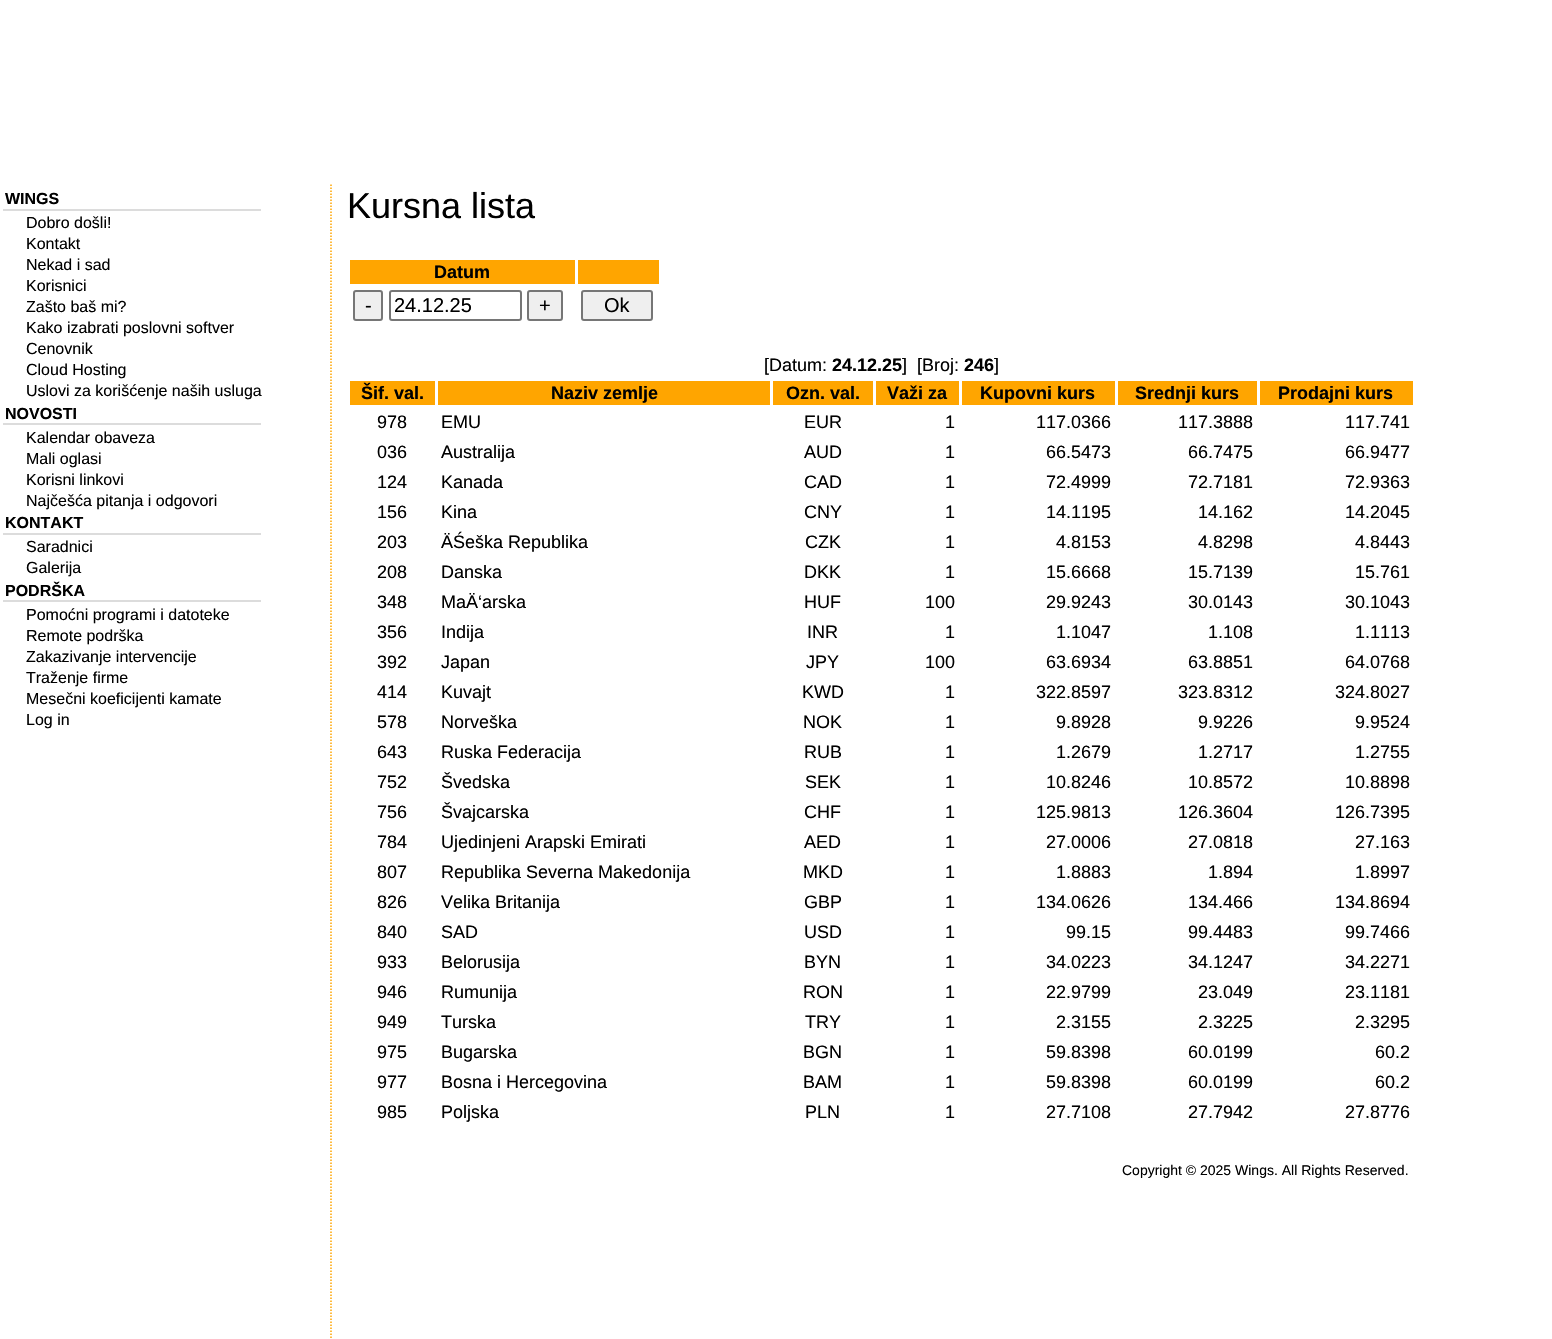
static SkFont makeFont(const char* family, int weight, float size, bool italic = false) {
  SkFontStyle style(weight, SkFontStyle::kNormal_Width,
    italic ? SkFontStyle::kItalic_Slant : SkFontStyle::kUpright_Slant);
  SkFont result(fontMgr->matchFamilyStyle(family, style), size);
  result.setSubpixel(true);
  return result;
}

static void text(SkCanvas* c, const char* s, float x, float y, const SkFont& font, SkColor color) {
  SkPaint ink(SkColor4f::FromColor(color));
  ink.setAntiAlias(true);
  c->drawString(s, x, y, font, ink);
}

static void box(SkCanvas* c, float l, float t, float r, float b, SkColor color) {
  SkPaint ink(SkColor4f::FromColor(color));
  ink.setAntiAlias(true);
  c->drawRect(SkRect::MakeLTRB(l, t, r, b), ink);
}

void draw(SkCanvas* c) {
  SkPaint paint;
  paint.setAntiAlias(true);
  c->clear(0xffffffff);
  box(c, 3, 209, 261, 211, 0xffdcdcdc);
  SkFont face1 = makeFont("Liberation Sans", 700, 16);
  text(c, "WINGS", 5, 204, face1, 0xff000000);
  SkFont face2 = makeFont("Liberation Sans", 400, 16);
  text(c, "Dobro došli!", 26, 228, face2, 0xff000000);
  text(c, "Kontakt", 26, 249, face2, 0xff000000);
  text(c, "Nekad i sad", 26, 270, face2, 0xff000000);
  text(c, "Korisnici", 26, 291, face2, 0xff000000);
  text(c, "Zašto baš mi?", 26, 312, face2, 0xff000000);
  text(c, "Kako izabrati poslovni softver", 26, 333, face2, 0xff000000);
  text(c, "Cenovnik", 26, 354, face2, 0xff000000);
  text(c, "Cloud Hosting", 26, 375, face2, 0xff000000);
  text(c, "Uslovi za korišćenje naših usluga", 26, 396, face2, 0xff000000);
  box(c, 3, 423, 261, 425, 0xffdcdcdc);
  text(c, "NOVOSTI", 5, 419, face1, 0xff000000);
  text(c, "Kalendar obaveza", 26, 443, face2, 0xff000000);
  text(c, "Mali oglasi", 26, 464, face2, 0xff000000);
  text(c, "Korisni linkovi", 26, 485, face2, 0xff000000);
  text(c, "Najčešća pitanja i odgovori", 26, 506, face2, 0xff000000);
  box(c, 3, 533, 261, 535, 0xffdcdcdc);
  text(c, "KONTAKT", 5, 528, face1, 0xff000000);
  text(c, "Saradnici", 26, 552, face2, 0xff000000);
  text(c, "Galerija", 26, 573, face2, 0xff000000);
  box(c, 3, 600, 261, 602, 0xffdcdcdc);
  text(c, "PODRŠKA", 5, 596, face1, 0xff000000);
  text(c, "Pomoćni programi i datoteke", 26, 620, face2, 0xff000000);
  text(c, "Remote podrška", 26, 641, face2, 0xff000000);
  text(c, "Zakazivanje intervencije", 26, 662, face2, 0xff000000);
  text(c, "Traženje firme", 26, 683, face2, 0xff000000);
  text(c, "Mesečni koeficijenti kamate", 26, 704, face2, 0xff000000);
  text(c, "Log in", 26, 725, face2, 0xff000000);
  paint.setStyle(SkPaint::kStroke_Style);
  paint.setStrokeWidth(1.5f);
  paint.setColor(0xffffa500);
  paint.setPathEffect(SkDashPathEffect::Make({{1.5f, 1.5f}}, 0));
  c->drawPath(SkPathBuilder().moveTo(331, 184.5f).lineTo(331, 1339.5f).detach(), paint);
  paint.setPathEffect(nullptr);
  SkFont face3 = makeFont("Liberation Sans", 400, 36);
  text(c, "Kursna lista", 347, 218, face3, 0xff000000);
  box(c, 350, 260, 575, 284, 0xffffa500);
  SkFont face4 = makeFont("Liberation Sans", 700, 18);
  text(c, "Datum", 434, 278, face4, 0xff000000);
  box(c, 578, 260, 659, 284, 0xffffa500);
  paint.setStyle(SkPaint::kFill_Style);
  paint.setColor(0xffefefef);
  c->drawRoundRect(SkRect::MakeLTRB(354, 291, 382, 320), 2, 2, paint);
  paint.setStyle(SkPaint::kStroke_Style);
  paint.setStrokeWidth(2);
  paint.setColor(0xff767676);
  c->drawRoundRect(SkRect::MakeLTRB(354, 291, 382, 320), 2, 2, paint);
  SkFont face5 = makeFont("Liberation Sans", 400, 20);
  text(c, "-", 365, 312, face5, 0xff000000);
  c->drawRoundRect(SkRect::MakeLTRB(390, 291, 521, 320), 2, 2, paint);
  text(c, "24.12.25", 394, 312, face5, 0xff000000);
  paint.setStyle(SkPaint::kFill_Style);
  paint.setColor(0xffefefef);
  c->drawRoundRect(SkRect::MakeLTRB(528, 291, 562, 320), 2, 2, paint);
  paint.setStyle(SkPaint::kStroke_Style);
  paint.setColor(0xff767676);
  c->drawRoundRect(SkRect::MakeLTRB(528, 291, 562, 320), 2, 2, paint);
  text(c, "+", 539, 312, face5, 0xff000000);
  paint.setStyle(SkPaint::kFill_Style);
  paint.setColor(0xffefefef);
  c->drawRoundRect(SkRect::MakeLTRB(582, 291, 652, 320), 2, 2, paint);
  paint.setStyle(SkPaint::kStroke_Style);
  paint.setColor(0xff767676);
  c->drawRoundRect(SkRect::MakeLTRB(582, 291, 652, 320), 2, 2, paint);
  text(c, "Ok", 604, 312, face5, 0xff000000);
  SkFont face6 = makeFont("Liberation Sans", 400, 18);
  text(c, "[Datum:", 764, 371, face6, 0xff000000);
  text(c, "24.12.25", 832, 371, face4, 0xff000000);
  text(c, "]", 902, 371, face6, 0xff000000);
  text(c, "[Broj:", 917, 371, face6, 0xff000000);
  text(c, "246", 964, 371, face4, 0xff000000);
  text(c, "]", 994, 371, face6, 0xff000000);
  box(c, 350, 381, 435, 405, 0xffffa500);
  text(c, "Šif. val.", 361, 399, face4, 0xff000000);
  box(c, 438, 381, 770, 405, 0xffffa500);
  text(c, "Naziv zemlje", 551, 399, face4, 0xff000000);
  box(c, 773, 381, 873, 405, 0xffffa500);
  text(c, "Ozn. val.", 786, 399, face4, 0xff000000);
  box(c, 876, 381, 959, 405, 0xffffa500);
  text(c, "Važi za", 887, 399, face4, 0xff000000);
  box(c, 962, 381, 1115, 405, 0xffffa500);
  text(c, "Kupovni kurs", 980, 399, face4, 0xff000000);
  box(c, 1118, 381, 1257, 405, 0xffffa500);
  text(c, "Srednji kurs", 1135, 399, face4, 0xff000000);
  box(c, 1260, 381, 1413, 405, 0xffffa500);
  text(c, "Prodajni kurs", 1278, 399, face4, 0xff000000);
  text(c, "978", 377, 428, face6, 0xff000000);
  text(c, "EMU", 441, 428, face6, 0xff000000);
  text(c, "EUR", 804, 428, face6, 0xff000000);
  text(c, "1", 945, 428, face6, 0xff000000);
  text(c, "117.0366", 1036, 428, face6, 0xff000000);
  text(c, "117.3888", 1178, 428, face6, 0xff000000);
  text(c, "117.741", 1345, 428, face6, 0xff000000);
  text(c, "036", 377, 458, face6, 0xff000000);
  text(c, "Australija", 441, 458, face6, 0xff000000);
  text(c, "AUD", 804, 458, face6, 0xff000000);
  text(c, "1", 945, 458, face6, 0xff000000);
  text(c, "66.5473", 1046, 458, face6, 0xff000000);
  text(c, "66.7475", 1188, 458, face6, 0xff000000);
  text(c, "66.9477", 1345, 458, face6, 0xff000000);
  text(c, "124", 377, 488, face6, 0xff000000);
  text(c, "Kanada", 441, 488, face6, 0xff000000);
  text(c, "CAD", 804, 488, face6, 0xff000000);
  text(c, "1", 945, 488, face6, 0xff000000);
  text(c, "72.4999", 1046, 488, face6, 0xff000000);
  text(c, "72.7181", 1188, 488, face6, 0xff000000);
  text(c, "72.9363", 1345, 488, face6, 0xff000000);
  text(c, "156", 377, 518, face6, 0xff000000);
  text(c, "Kina", 441, 518, face6, 0xff000000);
  text(c, "CNY", 804, 518, face6, 0xff000000);
  text(c, "1", 945, 518, face6, 0xff000000);
  text(c, "14.1195", 1046, 518, face6, 0xff000000);
  text(c, "14.162", 1198, 518, face6, 0xff000000);
  text(c, "14.2045", 1345, 518, face6, 0xff000000);
  text(c, "203", 377, 548, face6, 0xff000000);
  text(c, "ÄŚeška Republika", 441, 548, face6, 0xff000000);
  text(c, "CZK", 805, 548, face6, 0xff000000);
  text(c, "1", 945, 548, face6, 0xff000000);
  text(c, "4.8153", 1056, 548, face6, 0xff000000);
  text(c, "4.8298", 1198, 548, face6, 0xff000000);
  text(c, "4.8443", 1355, 548, face6, 0xff000000);
  text(c, "208", 377, 578, face6, 0xff000000);
  text(c, "Danska", 441, 578, face6, 0xff000000);
  text(c, "DKK", 804, 578, face6, 0xff000000);
  text(c, "1", 945, 578, face6, 0xff000000);
  text(c, "15.6668", 1046, 578, face6, 0xff000000);
  text(c, "15.7139", 1188, 578, face6, 0xff000000);
  text(c, "15.761", 1355, 578, face6, 0xff000000);
  text(c, "348", 377, 608, face6, 0xff000000);
  text(c, "MaÄ‘arska", 441, 608, face6, 0xff000000);
  text(c, "HUF", 804, 608, face6, 0xff000000);
  text(c, "100", 925, 608, face6, 0xff000000);
  text(c, "29.9243", 1046, 608, face6, 0xff000000);
  text(c, "30.0143", 1188, 608, face6, 0xff000000);
  text(c, "30.1043", 1345, 608, face6, 0xff000000);
  text(c, "356", 377, 638, face6, 0xff000000);
  text(c, "Indija", 441, 638, face6, 0xff000000);
  text(c, "INR", 807, 638, face6, 0xff000000);
  text(c, "1", 945, 638, face6, 0xff000000);
  text(c, "1.1047", 1056, 638, face6, 0xff000000);
  text(c, "1.108", 1208, 638, face6, 0xff000000);
  text(c, "1.1113", 1355, 638, face6, 0xff000000);
  text(c, "392", 377, 668, face6, 0xff000000);
  text(c, "Japan", 441, 668, face6, 0xff000000);
  text(c, "JPY", 806, 668, face6, 0xff000000);
  text(c, "100", 925, 668, face6, 0xff000000);
  text(c, "63.6934", 1046, 668, face6, 0xff000000);
  text(c, "63.8851", 1188, 668, face6, 0xff000000);
  text(c, "64.0768", 1345, 668, face6, 0xff000000);
  text(c, "414", 377, 698, face6, 0xff000000);
  text(c, "Kuvajt", 441, 698, face6, 0xff000000);
  text(c, "KWD", 802, 698, face6, 0xff000000);
  text(c, "1", 945, 698, face6, 0xff000000);
  text(c, "322.8597", 1036, 698, face6, 0xff000000);
  text(c, "323.8312", 1178, 698, face6, 0xff000000);
  text(c, "324.8027", 1335, 698, face6, 0xff000000);
  text(c, "578", 377, 728, face6, 0xff000000);
  text(c, "Norveška", 441, 728, face6, 0xff000000);
  text(c, "NOK", 803, 728, face6, 0xff000000);
  text(c, "1", 945, 728, face6, 0xff000000);
  text(c, "9.8928", 1056, 728, face6, 0xff000000);
  text(c, "9.9226", 1198, 728, face6, 0xff000000);
  text(c, "9.9524", 1355, 728, face6, 0xff000000);
  text(c, "643", 377, 758, face6, 0xff000000);
  text(c, "Ruska Federacija", 441, 758, face6, 0xff000000);
  text(c, "RUB", 804, 758, face6, 0xff000000);
  text(c, "1", 945, 758, face6, 0xff000000);
  text(c, "1.2679", 1056, 758, face6, 0xff000000);
  text(c, "1.2717", 1198, 758, face6, 0xff000000);
  text(c, "1.2755", 1355, 758, face6, 0xff000000);
  text(c, "752", 377, 788, face6, 0xff000000);
  text(c, "Švedska", 441, 788, face6, 0xff000000);
  text(c, "SEK", 805, 788, face6, 0xff000000);
  text(c, "1", 945, 788, face6, 0xff000000);
  text(c, "10.8246", 1046, 788, face6, 0xff000000);
  text(c, "10.8572", 1188, 788, face6, 0xff000000);
  text(c, "10.8898", 1345, 788, face6, 0xff000000);
  text(c, "756", 377, 818, face6, 0xff000000);
  text(c, "Švajcarska", 441, 818, face6, 0xff000000);
  text(c, "CHF", 804, 818, face6, 0xff000000);
  text(c, "1", 945, 818, face6, 0xff000000);
  text(c, "125.9813", 1036, 818, face6, 0xff000000);
  text(c, "126.3604", 1178, 818, face6, 0xff000000);
  text(c, "126.7395", 1335, 818, face6, 0xff000000);
  text(c, "784", 377, 848, face6, 0xff000000);
  text(c, "Ujedinjeni Arapski Emirati", 441, 848, face6, 0xff000000);
  text(c, "AED", 804, 848, face6, 0xff000000);
  text(c, "1", 945, 848, face6, 0xff000000);
  text(c, "27.0006", 1046, 848, face6, 0xff000000);
  text(c, "27.0818", 1188, 848, face6, 0xff000000);
  text(c, "27.163", 1355, 848, face6, 0xff000000);
  text(c, "807", 377, 878, face6, 0xff000000);
  text(c, "Republika Severna Makedonija", 441, 878, face6, 0xff000000);
  text(c, "MKD", 803, 878, face6, 0xff000000);
  text(c, "1", 945, 878, face6, 0xff000000);
  text(c, "1.8883", 1056, 878, face6, 0xff000000);
  text(c, "1.894", 1208, 878, face6, 0xff000000);
  text(c, "1.8997", 1355, 878, face6, 0xff000000);
  text(c, "826", 377, 908, face6, 0xff000000);
  text(c, "Velika Britanija", 441, 908, face6, 0xff000000);
  text(c, "GBP", 804, 908, face6, 0xff000000);
  text(c, "1", 945, 908, face6, 0xff000000);
  text(c, "134.0626", 1036, 908, face6, 0xff000000);
  text(c, "134.466", 1188, 908, face6, 0xff000000);
  text(c, "134.8694", 1335, 908, face6, 0xff000000);
  text(c, "840", 377, 938, face6, 0xff000000);
  text(c, "SAD", 441, 938, face6, 0xff000000);
  text(c, "USD", 804, 938, face6, 0xff000000);
  text(c, "1", 945, 938, face6, 0xff000000);
  text(c, "99.15", 1066, 938, face6, 0xff000000);
  text(c, "99.4483", 1188, 938, face6, 0xff000000);
  text(c, "99.7466", 1345, 938, face6, 0xff000000);
  text(c, "933", 377, 968, face6, 0xff000000);
  text(c, "Belorusija", 441, 968, face6, 0xff000000);
  text(c, "BYN", 804, 968, face6, 0xff000000);
  text(c, "1", 945, 968, face6, 0xff000000);
  text(c, "34.0223", 1046, 968, face6, 0xff000000);
  text(c, "34.1247", 1188, 968, face6, 0xff000000);
  text(c, "34.2271", 1345, 968, face6, 0xff000000);
  text(c, "946", 377, 998, face6, 0xff000000);
  text(c, "Rumunija", 441, 998, face6, 0xff000000);
  text(c, "RON", 803, 998, face6, 0xff000000);
  text(c, "1", 945, 998, face6, 0xff000000);
  text(c, "22.9799", 1046, 998, face6, 0xff000000);
  text(c, "23.049", 1198, 998, face6, 0xff000000);
  text(c, "23.1181", 1345, 998, face6, 0xff000000);
  text(c, "949", 377, 1028, face6, 0xff000000);
  text(c, "Turska", 441, 1028, face6, 0xff000000);
  text(c, "TRY", 805, 1028, face6, 0xff000000);
  text(c, "1", 945, 1028, face6, 0xff000000);
  text(c, "2.3155", 1056, 1028, face6, 0xff000000);
  text(c, "2.3225", 1198, 1028, face6, 0xff000000);
  text(c, "2.3295", 1355, 1028, face6, 0xff000000);
  text(c, "975", 377, 1058, face6, 0xff000000);
  text(c, "Bugarska", 441, 1058, face6, 0xff000000);
  text(c, "BGN", 803, 1058, face6, 0xff000000);
  text(c, "1", 945, 1058, face6, 0xff000000);
  text(c, "59.8398", 1046, 1058, face6, 0xff000000);
  text(c, "60.0199", 1188, 1058, face6, 0xff000000);
  text(c, "60.2", 1375, 1058, face6, 0xff000000);
  text(c, "977", 377, 1088, face6, 0xff000000);
  text(c, "Bosna i Hercegovina", 441, 1088, face6, 0xff000000);
  text(c, "BAM", 803, 1088, face6, 0xff000000);
  text(c, "1", 945, 1088, face6, 0xff000000);
  text(c, "59.8398", 1046, 1088, face6, 0xff000000);
  text(c, "60.0199", 1188, 1088, face6, 0xff000000);
  text(c, "60.2", 1375, 1088, face6, 0xff000000);
  text(c, "985", 377, 1118, face6, 0xff000000);
  text(c, "Poljska", 441, 1118, face6, 0xff000000);
  text(c, "PLN", 805, 1118, face6, 0xff000000);
  text(c, "1", 945, 1118, face6, 0xff000000);
  text(c, "27.7108", 1046, 1118, face6, 0xff000000);
  text(c, "27.7942", 1188, 1118, face6, 0xff000000);
  text(c, "27.8776", 1345, 1118, face6, 0xff000000);
  SkFont face7 = makeFont("Liberation Sans", 400, 14);
  text(c, "Copyright © 2025 Wings. All Rights Reserved.", 1122, 1175, face7, 0xff000000);
}
